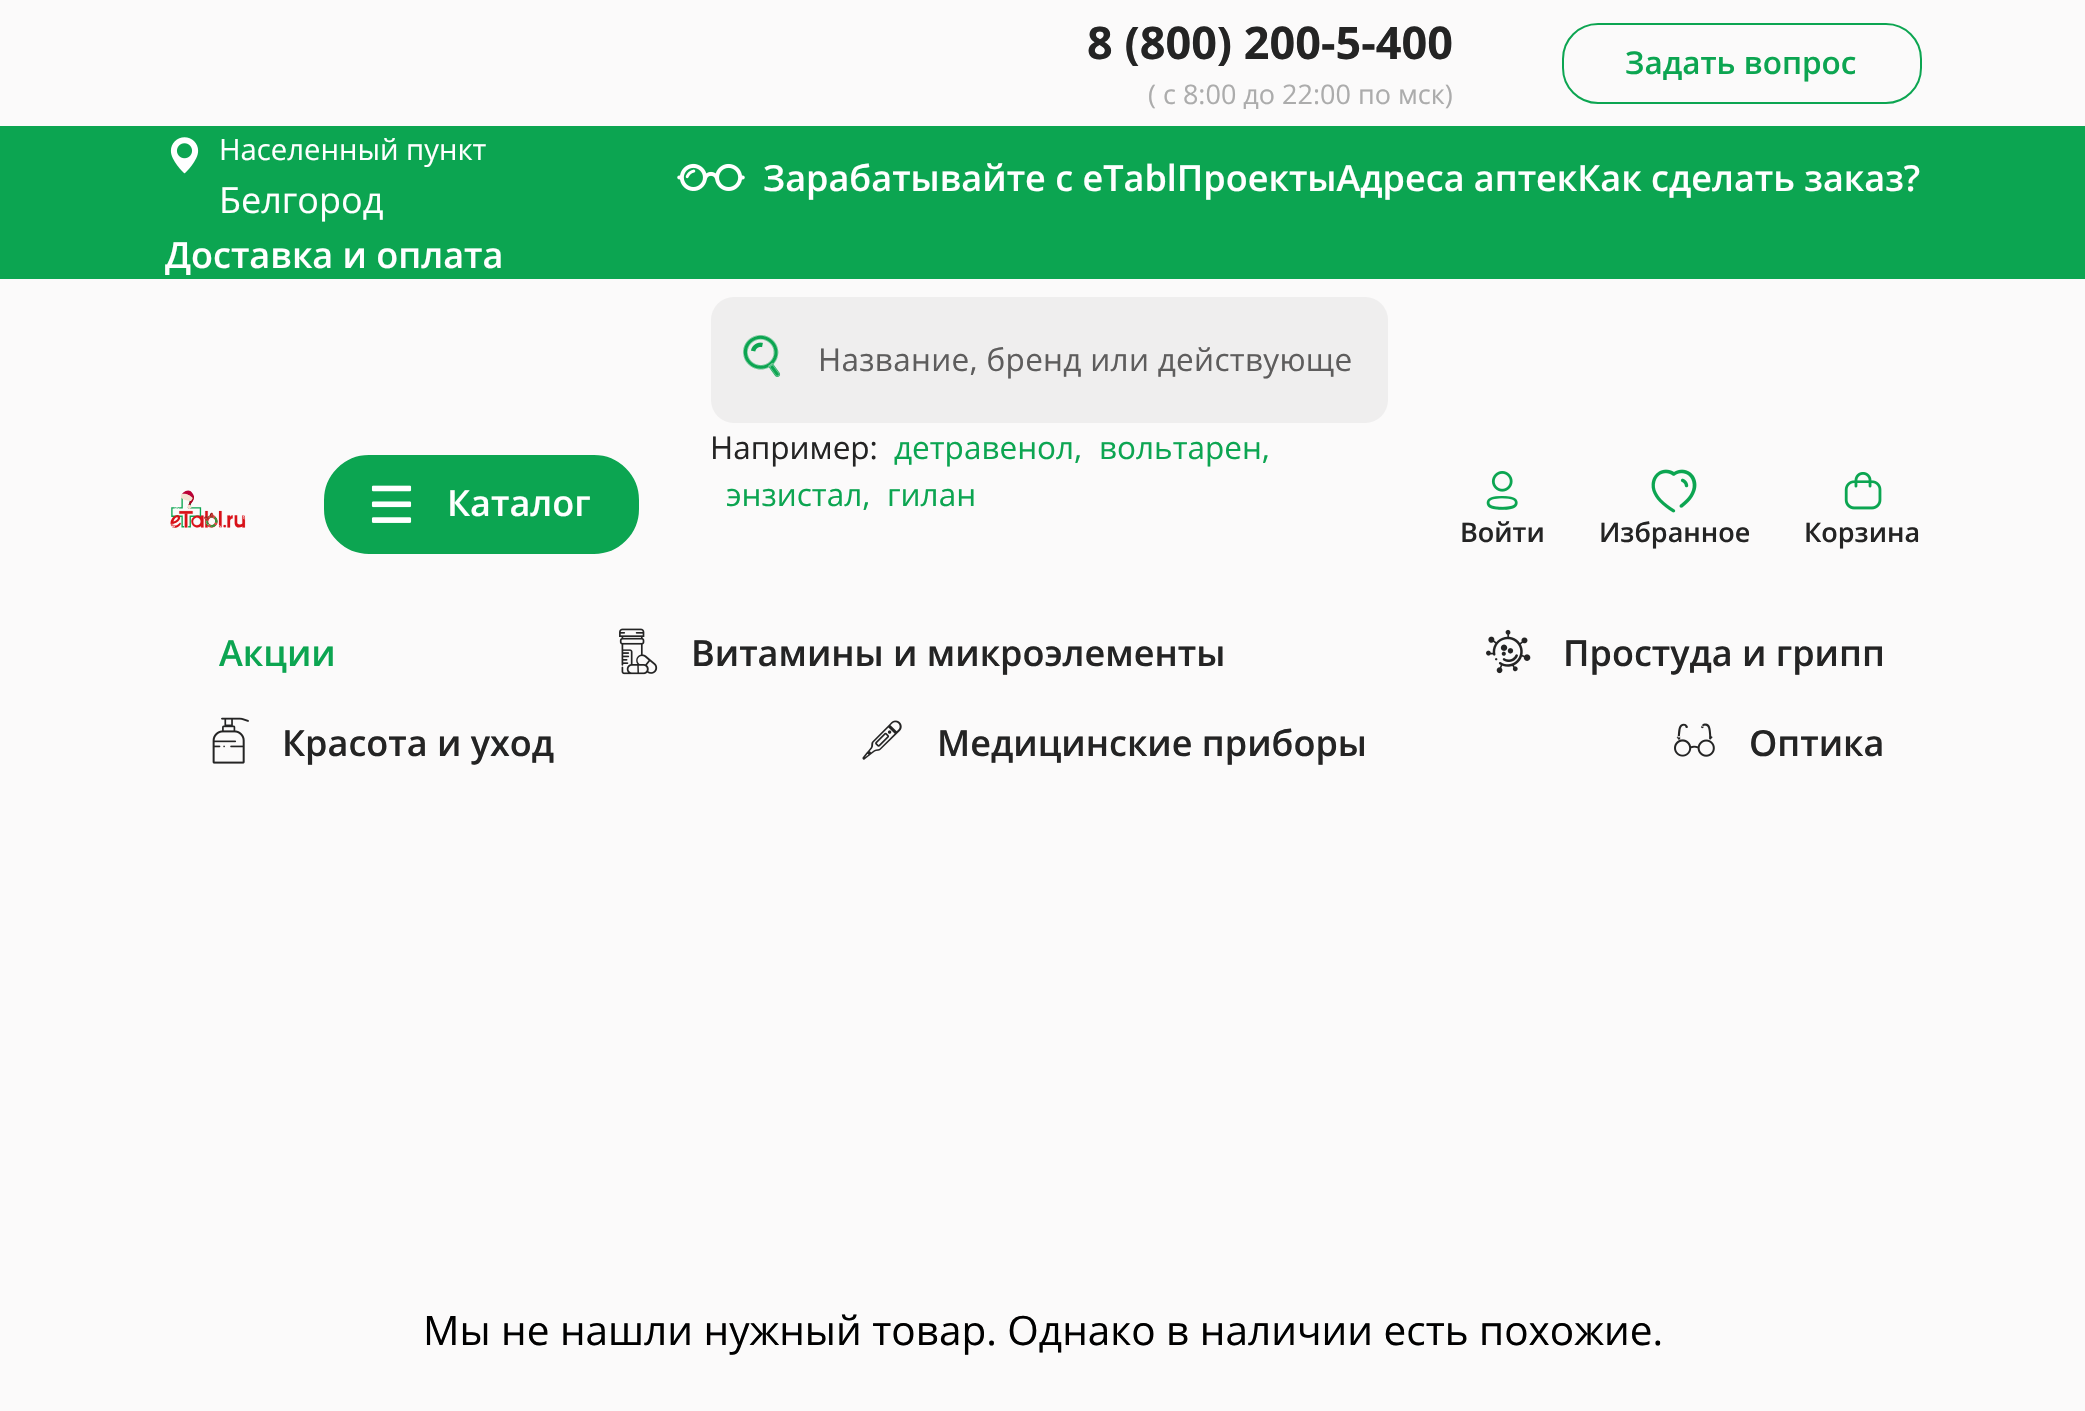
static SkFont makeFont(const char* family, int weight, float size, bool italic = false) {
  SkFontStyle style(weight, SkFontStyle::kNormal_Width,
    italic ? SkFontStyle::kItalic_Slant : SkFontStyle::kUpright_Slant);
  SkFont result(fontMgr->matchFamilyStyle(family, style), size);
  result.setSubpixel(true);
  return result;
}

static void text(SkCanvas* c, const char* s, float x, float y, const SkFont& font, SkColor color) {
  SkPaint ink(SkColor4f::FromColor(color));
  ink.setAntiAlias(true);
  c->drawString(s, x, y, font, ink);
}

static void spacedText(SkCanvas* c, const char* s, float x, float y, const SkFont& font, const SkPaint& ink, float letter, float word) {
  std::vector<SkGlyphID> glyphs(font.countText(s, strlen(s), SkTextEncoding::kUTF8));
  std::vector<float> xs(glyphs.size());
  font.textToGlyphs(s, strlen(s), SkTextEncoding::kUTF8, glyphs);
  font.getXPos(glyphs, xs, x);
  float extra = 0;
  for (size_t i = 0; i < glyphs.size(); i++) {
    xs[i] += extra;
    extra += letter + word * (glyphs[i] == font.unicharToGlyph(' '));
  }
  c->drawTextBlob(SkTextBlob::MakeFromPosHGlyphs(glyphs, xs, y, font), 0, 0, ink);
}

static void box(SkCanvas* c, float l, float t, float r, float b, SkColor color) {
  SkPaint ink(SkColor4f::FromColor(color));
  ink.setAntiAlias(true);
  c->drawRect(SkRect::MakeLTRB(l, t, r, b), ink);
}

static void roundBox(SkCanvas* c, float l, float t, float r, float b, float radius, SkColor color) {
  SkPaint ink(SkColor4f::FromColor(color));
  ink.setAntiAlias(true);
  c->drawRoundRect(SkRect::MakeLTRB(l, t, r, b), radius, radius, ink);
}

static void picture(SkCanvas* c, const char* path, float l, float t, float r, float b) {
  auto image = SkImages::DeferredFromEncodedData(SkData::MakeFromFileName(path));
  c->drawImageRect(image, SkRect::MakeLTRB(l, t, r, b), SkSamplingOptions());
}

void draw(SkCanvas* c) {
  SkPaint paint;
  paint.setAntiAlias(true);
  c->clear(0xfffbfafa);
  SkFont face1 = makeFont("Open Sans", 700, 45);
  text(c, "8 (800) 200-5-400", 1087, 59, face1, 0xff242424);
  SkFont face2 = makeFont("Open Sans", 400, 27);
  text(c, "( с 8:00 до 22:00 по мск)", 1148, 104, face2, 0xffacacac);
  paint.setStyle(SkPaint::kStroke_Style);
  paint.setStrokeWidth(2);
  paint.setColor(0xff0ca551);
  c->drawRoundRect(SkRect::MakeLTRB(1563, 24, 1921, 103), 35, 35, paint);
  SkFont face3 = makeFont("Open Sans", 600, 31.5f);
  text(c, "Задать вопрос", 1625, 74, face3, 0xff0ca551);
  box(c, 0, 126, 2085, 279, 0xff0ca551);
  picture(c, "img_01.png", 170, 137, 199, 174);
  SkFont face4 = makeFont("Open Sans", 400, 29.25f);
  text(c, "Населенный пункт", 219, 160, face4, 0xffffffff);
  SkFont face5 = makeFont("Open Sans", 400, 36);
  text(c, "Белгород", 219, 213, face5, 0xffffffff);
  picture(c, "img_02.png", 677, 163, 745, 191);
  SkFont face6 = makeFont("Open Sans", 600, 36);
  text(c, "Зарабатывайте с eTablПроектыАдреса аптекКак сделать заказ?", 763, 191, face6, 0xffffffff);
  text(c, "Доставка и оплата", 165, 268, face6, 0xffffffff);
  picture(c, "img_03.png", 170, 490, 246, 528);
  paint.setStyle(SkPaint::kFill_Style);
  c->drawRoundRect(SkRect::MakeLTRB(325, 456, 638, 553), 44, 44, paint);
  paint.setStyle(SkPaint::kStroke_Style);
  c->drawRoundRect(SkRect::MakeLTRB(325, 456, 638, 553), 44, 44, paint);
  picture(c, "img_04.png", 371, 485, 412, 523);
  text(c, "Каталог", 447, 516, face6, 0xffffffff);
  roundBox(c, 711, 297, 1388, 423, 23, 0xffefeeee);
  picture(c, "img_05.png", 743, 335, 781, 377);
  SkFont face7 = makeFont("Open Sans", 400, 31.5f);
  paint.setStyle(SkPaint::kFill_Style);
  paint.setColor(0xff5e5d5d);
  spacedText(c, "Название, бренд или действующе", 818, 371, face7, paint, 0.3f, 0);
  text(c, "Например:", 710, 459, face7, 0xff242424);
  text(c, "детравенол,", 894, 459, face7, 0xff0ca551);
  text(c, "вольтарен,", 1099, 459, face7, 0xff0ca551);
  text(c, "энзистал,", 726, 506, face7, 0xff0ca551);
  text(c, "гилан", 887, 506, face7, 0xff0ca551);
  picture(c, "img_06.png", 1486, 471, 1518, 510);
  SkFont face8 = makeFont("Open Sans", 600, 27);
  text(c, "Войти", 1460, 542, face8, 0xff242424);
  picture(c, "img_07.png", 1651, 469, 1697, 513);
  text(c, "Избранное", 1599, 542, face8, 0xff242424);
  picture(c, "img_08.png", 1844, 472, 1882, 510);
  text(c, "Корзина", 1804, 542, face8, 0xff242424);
  text(c, "Акции", 219, 666, face6, 0xff0ca551);
  picture(c, "img_09.png", 619, 628, 658, 675);
  text(c, "Витамины и микроэлементы", 691, 666, face6, 0xff242424);
  picture(c, "img_10.png", 1486, 629, 1531, 674);
  text(c, "Простуда и грипп", 1563, 666, face6, 0xff242424);
  picture(c, "img_11.png", 212, 717, 249, 764);
  text(c, "Красота и уход", 282, 756, face6, 0xff242424);
  picture(c, "img_12.png", 862, 720, 902, 760);
  text(c, "Медицинские приборы", 937, 756, face6, 0xff242424);
  picture(c, "img_13.png", 1674, 723, 1715, 757);
  text(c, "Оптика", 1749, 756, face6, 0xff242424);
  SkFont face9 = makeFont("Open Sans", 400, 40.5f);
  text(c, "Мы не нашли нужный товар. Однако в наличии есть похожие.", 423, 1345, face9, 0xff000000);
}
